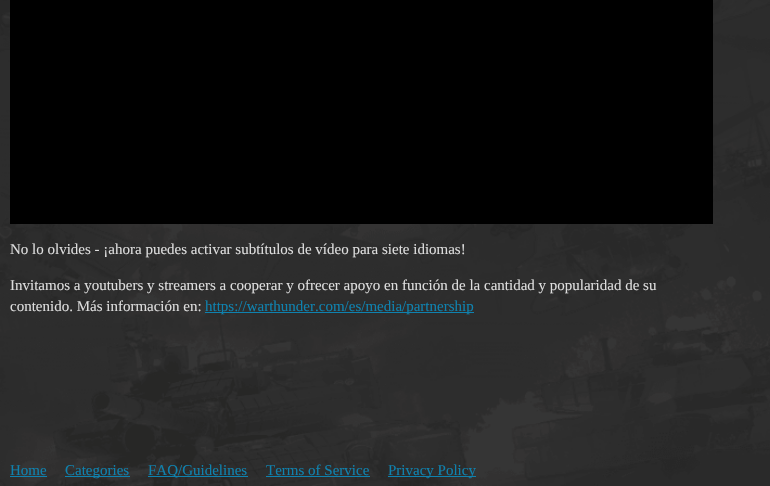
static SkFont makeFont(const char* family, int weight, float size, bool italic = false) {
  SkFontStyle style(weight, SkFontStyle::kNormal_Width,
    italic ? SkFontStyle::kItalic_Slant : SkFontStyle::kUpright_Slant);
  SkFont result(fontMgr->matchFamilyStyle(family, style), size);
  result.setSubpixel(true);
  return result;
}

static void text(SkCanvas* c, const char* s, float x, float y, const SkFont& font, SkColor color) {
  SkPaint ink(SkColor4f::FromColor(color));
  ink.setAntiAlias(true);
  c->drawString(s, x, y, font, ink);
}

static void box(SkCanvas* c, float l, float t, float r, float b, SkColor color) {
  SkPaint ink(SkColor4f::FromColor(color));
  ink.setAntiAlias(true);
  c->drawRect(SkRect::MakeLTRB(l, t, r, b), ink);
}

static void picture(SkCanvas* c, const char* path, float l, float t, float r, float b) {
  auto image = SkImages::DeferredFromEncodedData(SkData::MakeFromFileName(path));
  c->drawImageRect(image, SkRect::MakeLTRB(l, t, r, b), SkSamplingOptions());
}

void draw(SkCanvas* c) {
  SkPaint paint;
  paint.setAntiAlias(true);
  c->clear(0xff222222);
  picture(c, "img_01.png", 0, 0, 770, 486);
  box(c, 10, 0, 713, 224, 0xff000000);
  SkFont face1 = makeFont("Liberation Serif", 400, 15);
  text(c, "No lo olvides - ¡ahora puedes activar subtítulos de vídeo para siete idiomas!", 10, 254, face1, 0xffdddddd);
  text(c, "Invitamos a youtubers y streamers a cooperar y ofrecer apoyo en función de la cantidad y popularidad de su", 10, 290, face1, 0xffdddddd);
  text(c, "contenido. Más información en:", 10, 311, face1, 0xffdddddd);
  box(c, 205, 312, 474, 313, 0xff0f82af);
  text(c, "https://warthunder.com/es/media/partnership", 205, 311, face1, 0xff0f82af);
  text(c, "Home", 10, 475, face1, 0xff0f82af);
  box(c, 10, 476, 47, 477, 0xff0f82af);
  box(c, 65, 476, 130, 477, 0xff0f82af);
  text(c, "Categories", 65, 475, face1, 0xff0f82af);
  box(c, 148, 476, 248, 477, 0xff0f82af);
  text(c, "FAQ/Guidelines", 148, 475, face1, 0xff0f82af);
  text(c, "Terms of Service", 266, 475, face1, 0xff0f82af);
  box(c, 266, 476, 370, 477, 0xff0f82af);
  box(c, 388, 476, 476, 477, 0xff0f82af);
  text(c, "Privacy Policy", 388, 475, face1, 0xff0f82af);
}
